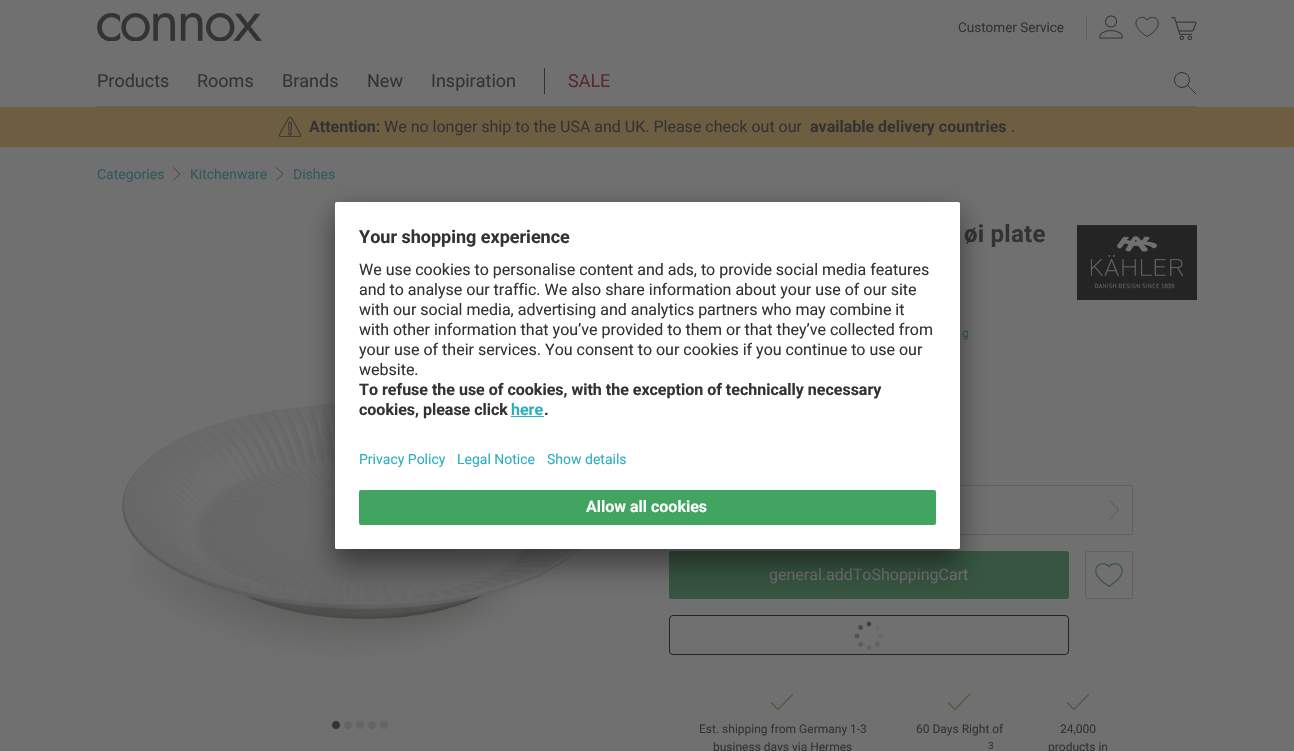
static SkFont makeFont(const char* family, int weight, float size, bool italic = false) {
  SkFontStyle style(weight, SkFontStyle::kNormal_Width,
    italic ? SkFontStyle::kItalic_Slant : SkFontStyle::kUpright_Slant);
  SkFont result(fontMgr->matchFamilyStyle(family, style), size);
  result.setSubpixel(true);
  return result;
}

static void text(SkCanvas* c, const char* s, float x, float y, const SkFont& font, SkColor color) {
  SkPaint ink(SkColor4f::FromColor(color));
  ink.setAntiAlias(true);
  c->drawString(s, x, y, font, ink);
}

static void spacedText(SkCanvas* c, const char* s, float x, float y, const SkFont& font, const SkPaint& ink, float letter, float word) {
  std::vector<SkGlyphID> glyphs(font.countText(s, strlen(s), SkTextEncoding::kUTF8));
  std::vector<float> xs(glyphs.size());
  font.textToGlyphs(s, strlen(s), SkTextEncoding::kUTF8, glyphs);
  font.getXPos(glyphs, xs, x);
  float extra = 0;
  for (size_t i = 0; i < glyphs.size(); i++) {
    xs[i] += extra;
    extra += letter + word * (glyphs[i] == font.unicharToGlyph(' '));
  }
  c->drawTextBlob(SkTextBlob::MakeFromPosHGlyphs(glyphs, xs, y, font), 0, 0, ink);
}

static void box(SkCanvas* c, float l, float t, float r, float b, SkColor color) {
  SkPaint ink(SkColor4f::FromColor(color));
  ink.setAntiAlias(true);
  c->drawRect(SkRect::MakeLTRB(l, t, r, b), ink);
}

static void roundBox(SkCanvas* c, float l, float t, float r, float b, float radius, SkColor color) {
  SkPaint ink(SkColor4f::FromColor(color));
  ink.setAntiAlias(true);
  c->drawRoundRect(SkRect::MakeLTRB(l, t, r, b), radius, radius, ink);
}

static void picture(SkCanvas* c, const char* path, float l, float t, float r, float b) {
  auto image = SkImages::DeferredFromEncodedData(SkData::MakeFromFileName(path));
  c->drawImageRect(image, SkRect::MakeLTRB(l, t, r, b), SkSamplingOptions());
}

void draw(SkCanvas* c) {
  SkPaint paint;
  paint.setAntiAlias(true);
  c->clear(0xff707070);
  picture(c, "img_01.png", 97, 13, 262, 41);
  box(c, 1086, 15, 1087, 39, 0xff60605f);
  SkFont face1 = makeFont("Roboto", 400, 13.5f);
  text(c, "Customer Service", 958, 32, face1, 0xff333333);
  picture(c, "img_02.png", 1099, 15, 1123, 39);
  paint.setStyle(SkPaint::kStroke_Style);
  paint.setStrokeWidth(1);
  paint.setColor(0xff333333);
  c->drawPath(SkPathBuilder().moveTo(1152.5f, 17.5f).cubicTo(1150, 17.5f, 1148, 18.5f, 1147, 20).cubicTo(1141, 12, 1125.5f, 23, 1147, 36.5f).cubicTo(1151, 34.5f, 1155, 31.5f, 1157, 27.5f).cubicTo(1159.5f, 23, 1158, 17.5f, 1152.5f, 17.5f).close().detach(), paint);
  picture(c, "img_03.png", 1171, 17, 1197, 41);
  box(c, 97, 106, 1197, 107, 0xff60605f);
  SkFont face2 = makeFont("Roboto", 400, 18);
  text(c, "Products", 97, 87, face2, 0xff333333);
  text(c, "Rooms", 197, 87, face2, 0xff333333);
  text(c, "Brands", 282, 87, face2, 0xff333333);
  text(c, "New", 367, 87, face2, 0xff333333);
  text(c, "Inspiration", 431, 87, face2, 0xff333333);
  box(c, 544, 68, 545, 94, 0xff333333);
  text(c, "SALE", 568, 87, face2, 0xff5b2a2d);
  c->drawCircle(1182, 80, 7.5f, paint);
  paint.setStrokeCap(SkPaint::kRound_Cap);
  c->drawPath(SkPathBuilder().moveTo(1196, 94).lineTo(1187, 85).detach(), paint);
  box(c, 0, 107, 1294, 147, 0xff6d5e41);
  picture(c, "img_04.png", 279, 117, 301, 137);
  SkFont face3 = makeFont("Roboto", 700, 16);
  text(c, "Attention:", 309, 132, face3, 0xff333333);
  SkFont face4 = makeFont("Roboto", 400, 16);
  text(c, "We no longer ship to the USA and UK. Please check out our", 384, 132, face4, 0xff333333);
  text(c, "available delivery countries", 810, 132, face3, 0xff333333);
  text(c, ".", 1011, 132, face4, 0xff333333);
  SkFont face5 = makeFont("Roboto", 400, 14);
  text(c, "Categories", 97, 179, face5, 0xff32585d);
  paint.setStrokeWidth(0.7f);
  c->drawPath(SkPathBuilder().moveTo(173.5f, 180).lineTo(180, 174).lineTo(173.5f, 167.5f).detach(), paint);
  text(c, "Kitchenware", 190, 179, face5, 0xff32585d);
  c->drawPath(SkPathBuilder().moveTo(276.5f, 180).lineTo(283, 174).lineTo(276.5f, 167.5f).detach(), paint);
  text(c, "Dishes", 293, 179, face5, 0xff32585d);
  picture(c, "img_05.png", 120, 403, 602, 663);
  paint.setStyle(SkPaint::kFill_Style);
  c->drawCircle(336, 725, 4.5f, paint);
  paint.setStyle(SkPaint::kStroke_Style);
  paint.setStrokeWidth(1);
  paint.setStrokeCap(SkPaint::kButt_Cap);
  paint.setColor(0xff707070);
  c->drawCircle(336, 725, 4.5f, paint);
  paint.setStyle(SkPaint::kFill_Style);
  paint.setColor(0xff646464);
  c->drawCircle(348, 725, 4.5f, paint);
  paint.setStyle(SkPaint::kStroke_Style);
  paint.setColor(0xff707070);
  c->drawCircle(348, 725, 4.5f, paint);
  paint.setStyle(SkPaint::kFill_Style);
  paint.setColor(0xff646464);
  c->drawCircle(360, 725, 4.5f, paint);
  paint.setStyle(SkPaint::kStroke_Style);
  paint.setColor(0xff707070);
  c->drawCircle(360, 725, 4.5f, paint);
  paint.setStyle(SkPaint::kFill_Style);
  paint.setColor(0xff646464);
  c->drawCircle(372, 725, 4.5f, paint);
  paint.setStyle(SkPaint::kStroke_Style);
  paint.setColor(0xff707070);
  c->drawCircle(372, 725, 4.5f, paint);
  paint.setStyle(SkPaint::kFill_Style);
  paint.setColor(0xff646464);
  c->drawCircle(384, 725, 4.5f, paint);
  paint.setStyle(SkPaint::kStroke_Style);
  paint.setColor(0xff707070);
  c->drawCircle(384, 725, 4.5f, paint);
  SkFont face6 = makeFont("Roboto", 700, 24);
  paint.setStyle(SkPaint::kFill_Style);
  paint.setColor(0xff333333);
  spacedText(c, "øi plate", 964, 242, face6, paint, 0.25f, 0);
  picture(c, "img_06.png", 1077, 225, 1197, 300);
  SkFont face7 = makeFont("Roboto", 400, 12);
  text(c, "g", 962, 337, face7, 0xff32585d);
  paint.setStyle(SkPaint::kStroke_Style);
  paint.setColor(0xff60605f);
  c->drawRoundRect(SkRect::MakeLTRB(669.5f, 485.5f, 1132.5f, 534.5f), 1.5f, 1.5f, paint);
  paint.setStrokeWidth(0.8f);
  paint.setStrokeCap(SkPaint::kRound_Cap);
  paint.setColor(0xff32585d);
  c->drawPath(SkPathBuilder().moveTo(1109.5f, 519.5f).lineTo(1118.5f, 510).lineTo(1109.5f, 500.5f).detach(), paint);
  paint.setStyle(SkPaint::kFill_Style);
  paint.setColor(0xff375541);
  c->drawRoundRect(SkRect::MakeLTRB(669.5f, 551.5f, 1068.5f, 598.5f), 1.5f, 1.5f, paint);
  paint.setStyle(SkPaint::kStroke_Style);
  paint.setStrokeWidth(1);
  paint.setStrokeCap(SkPaint::kButt_Cap);
  c->drawRoundRect(SkRect::MakeLTRB(669.5f, 551.5f, 1068.5f, 598.5f), 1.5f, 1.5f, paint);
  text(c, "general.addToShoppingCart", 769, 580, face4, 0xff707070);
  paint.setColor(0xff242424);
  c->drawRoundRect(SkRect::MakeLTRB(669.5f, 615.5f, 1068.5f, 654.5f), 3.5f, 3.5f, paint);
  picture(c, "img_07.png", 854, 621, 884, 650);
  paint.setColor(0xff60605f);
  c->drawRoundRect(SkRect::MakeLTRB(1085.5f, 551.5f, 1132.5f, 598.5f), 1.5f, 1.5f, paint);
  picture(c, "img_08.png", 1095, 563, 1123, 587);
  paint.setStrokeWidth(1.4f);
  paint.setStrokeCap(SkPaint::kRound_Cap);
  paint.setColor(0xff4a5d41);
  c->drawPath(SkPathBuilder().moveTo(771.5f, 703).lineTo(777.5f, 709).cubicTo(777.5f, 709.5f, 778, 709.5f, 778.5f, 709).lineTo(792.5f, 694.5f).detach(), paint);
  text(c, "Est. shipping from Germany 1-3", 699, 733, face7, 0xff333333);
  text(c, "business days via Hermes", 713, 751, face7, 0xff333333);
  c->drawPath(SkPathBuilder().moveTo(948.5f, 703).lineTo(954.5f, 709).cubicTo(954.5f, 709.5f, 955, 709.5f, 955.5f, 709).lineTo(969.5f, 694.5f).detach(), paint);
  text(c, "60 Days Right of", 916, 733, face7, 0xff333333);
  SkFont face8 = makeFont("Roboto", 400, 10);
  text(c, "3", 988, 749, face8, 0xff333333);
  c->drawPath(SkPathBuilder().moveTo(1067.5f, 703).lineTo(1073.5f, 709).cubicTo(1073.5f, 709.5f, 1074, 709.5f, 1074.5f, 709).lineTo(1088.5f, 694.5f).detach(), paint);
  text(c, "24,000", 1060, 733, face7, 0xff333333);
  text(c, "products in", 1048, 751, face7, 0xff333333);
  paint.setStyle(SkPaint::kFill_Style);
  paint.setColor(0x4d000000);
  paint.setMaskFilter(SkMaskFilter::MakeBlur(kNormal_SkBlurStyle, 14));
  c->drawRoundRect(SkRect::MakeLTRB(335, 222, 960, 569), 2, 2, paint);
  paint.setMaskFilter(nullptr);
  paint.setColor(0x38000000);
  paint.setMaskFilter(SkMaskFilter::MakeBlur(kNormal_SkBlurStyle, 13));
  c->drawRoundRect(SkRect::MakeLTRB(335, 207, 960, 554), 2, 2, paint);
  paint.setMaskFilter(nullptr);
  roundBox(c, 335, 202, 960, 549, 2, 0xffffffff);
  box(c, 335, 203, 960, 204, 0xffffffff);
  SkFont face9 = makeFont("Roboto", 700, 18);
  text(c, "Your shopping experience", 359, 243, face9, 0xff333333);
  text(c, "We use cookies to personalise content and ads, to provide social media features", 359, 275, face4, 0xff333333);
  text(c, "and to analyse our traffic. We also share information about your use of our site", 359, 295, face4, 0xff333333);
  text(c, "with our social media, advertising and analytics partners who may combine it", 359, 315, face4, 0xff333333);
  text(c, "with other information that you’ve provided to them or that they’ve collected from", 359, 335, face4, 0xff333333);
  text(c, "your use of their services. You consent to our cookies if you continue to use our", 359, 355, face4, 0xff333333);
  text(c, "website.", 359, 375, face4, 0xff333333);
  c->save();
  c->clipRect(SkRect::MakeLTRB(359, 256, 936, 424));
  text(c, "To refuse the use of cookies, with the exception of technically necessary", 359, 395, face3, 0xff333333);
  c->restore();
  text(c, "cookies, please click", 359, 415, face3, 0xff333333);
  text(c, "here", 511, 415, face3, 0xff2faebe);
  box(c, 511, 416, 544, 417, 0xff2faebe);
  text(c, ".", 544, 415, face3, 0xff333333);
  text(c, "Privacy Policy", 359, 464, face5, 0xff2faebe);
  text(c, "Legal Notice", 457, 464, face5, 0xff2faebe);
  text(c, "Show details", 547, 464, face5, 0xff2faebe);
  paint.setColor(0xffffffff);
  c->drawPath(SkPathBuilder().moveTo(335, 482).lineTo(960, 482).lineTo(960, 547).cubicTo(960, 548, 959, 549, 958, 549).lineTo(337, 549).cubicTo(336, 549, 335, 548, 335, 547).close().detach(), paint);
  roundBox(c, 359, 490, 936, 525, 2, 0xff41a561);
  text(c, "Allow all cookies", 586, 512, face3, 0xfffafafa);
}
